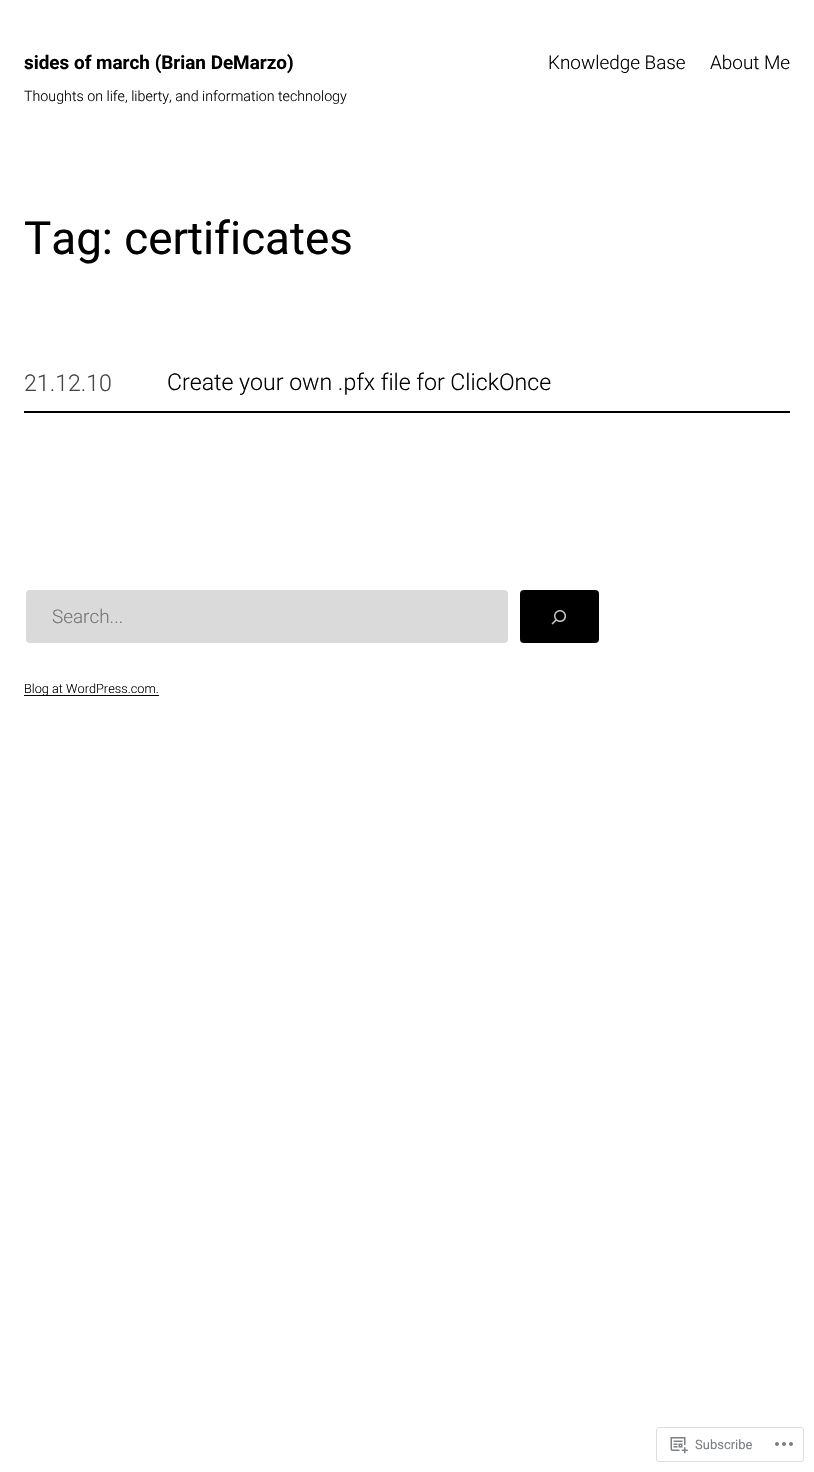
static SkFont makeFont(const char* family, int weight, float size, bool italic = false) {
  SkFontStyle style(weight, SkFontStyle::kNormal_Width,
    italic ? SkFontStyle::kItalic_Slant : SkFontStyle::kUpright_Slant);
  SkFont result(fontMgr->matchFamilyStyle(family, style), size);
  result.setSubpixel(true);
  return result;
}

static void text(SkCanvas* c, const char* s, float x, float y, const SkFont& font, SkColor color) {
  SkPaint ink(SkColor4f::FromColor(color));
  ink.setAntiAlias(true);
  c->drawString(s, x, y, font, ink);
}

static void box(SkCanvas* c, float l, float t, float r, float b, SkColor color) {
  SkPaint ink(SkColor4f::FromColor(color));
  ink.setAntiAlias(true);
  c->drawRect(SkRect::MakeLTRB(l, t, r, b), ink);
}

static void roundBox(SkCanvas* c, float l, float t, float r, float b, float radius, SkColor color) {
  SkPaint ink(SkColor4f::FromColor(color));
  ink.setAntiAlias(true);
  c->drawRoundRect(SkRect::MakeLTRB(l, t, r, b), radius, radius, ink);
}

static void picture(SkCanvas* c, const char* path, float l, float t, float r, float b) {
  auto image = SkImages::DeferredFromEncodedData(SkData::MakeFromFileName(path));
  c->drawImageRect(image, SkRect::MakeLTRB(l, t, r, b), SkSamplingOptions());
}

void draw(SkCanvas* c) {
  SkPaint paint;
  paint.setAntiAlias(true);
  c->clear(0xffffffff);
  SkFont face1 = makeFont("Roboto", 700, 18.9f);
  text(c, "sides of march (Brian DeMarzo)", 24, 69, face1, 0xff000000);
  SkFont face2 = makeFont("Roboto", 300, 18.9f);
  text(c, "Knowledge Base", 548, 69, face2, 0xff000000);
  text(c, "About Me", 710, 69, face2, 0xff000000);
  SkFont face3 = makeFont("Roboto", 300, 14.25f);
  text(c, "Thoughts on life, liberty, and information technology", 24, 101, face3, 0xff000000);
  SkFont face4 = makeFont("Roboto", 400, 45.75f);
  text(c, "Tag: certificates", 24, 254, face4, 0xff000000);
  box(c, 24, 411, 790, 413, 0xff000000);
  SkFont face5 = makeFont("Roboto", 300, 23.1f);
  text(c, "21.12.10", 24, 391, face5, 0xff454545);
  text(c, "Create your own .pfx file for ClickOnce", 167, 390, face5, 0xff000000);
  roundBox(c, 26, 590, 508, 643, 4, 0xffdadada);
  text(c, "Search...", 52, 623, face2, 0xff757575);
  roundBox(c, 520, 590, 599, 643, 4, 0xff000000);
  picture(c, "img_01.png", 551, 610, 567, 625);
  box(c, 24, 695, 159, 696, 0xff000000);
  SkFont face6 = makeFont("Roboto", 300, 12.75f);
  text(c, "Blog at WordPress.com.", 24, 693, face6, 0xff000000);
  paint.setStyle(SkPaint::kStroke_Style);
  paint.setStrokeWidth(1);
  paint.setColor(0xffdddddf);
  c->drawRoundRect(SkRect::MakeLTRB(656.5f, 1427.5f, 803.5f, 1461.5f), 2.5f, 2.5f, paint);
  picture(c, "img_02.png", 670, 1437, 688, 1454);
  SkFont face7 = makeFont("Roboto", 400, 13);
  text(c, "Subscribe", 695, 1449, face7, 0xff7b7f85);
  picture(c, "img_03.png", 775, 1442, 793, 1446);
}
